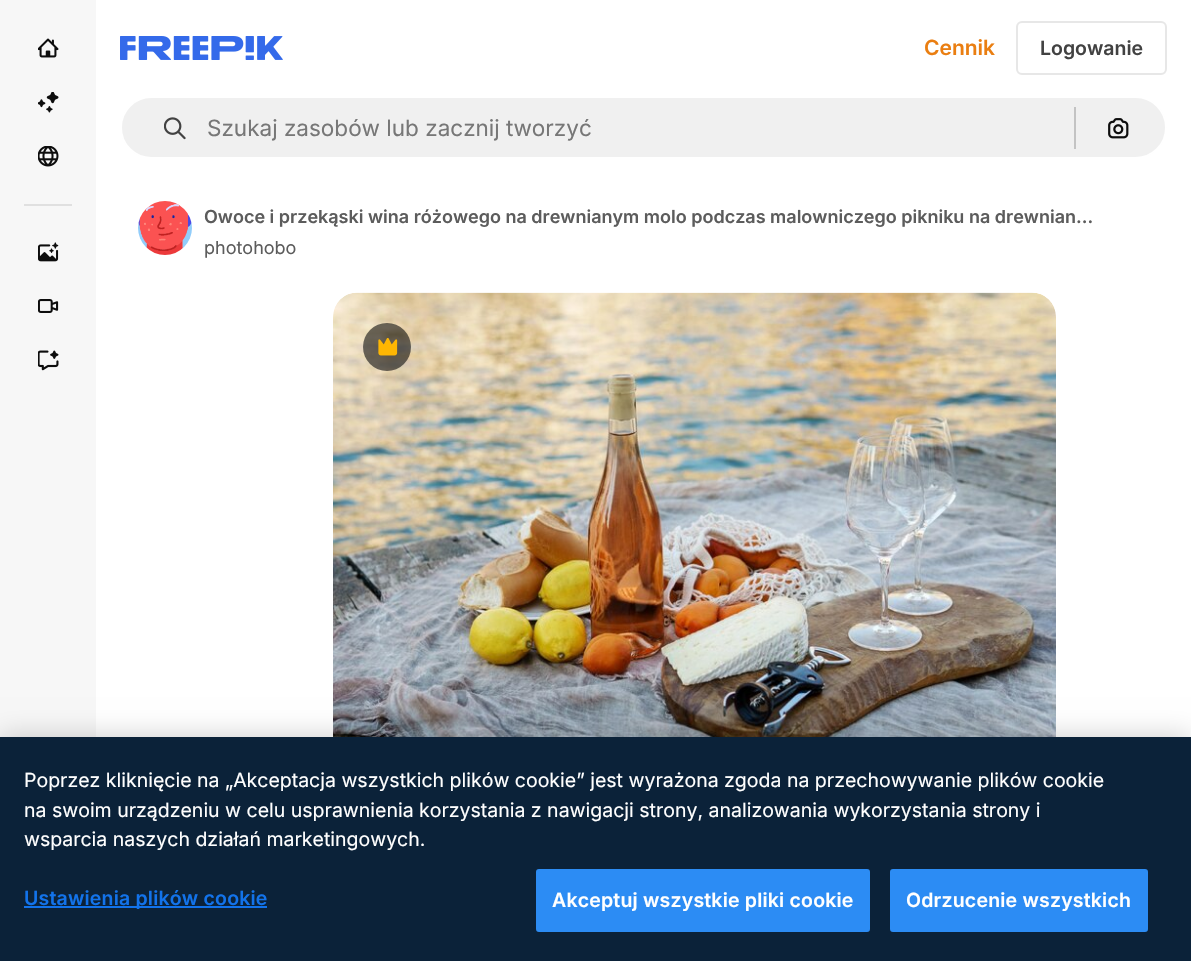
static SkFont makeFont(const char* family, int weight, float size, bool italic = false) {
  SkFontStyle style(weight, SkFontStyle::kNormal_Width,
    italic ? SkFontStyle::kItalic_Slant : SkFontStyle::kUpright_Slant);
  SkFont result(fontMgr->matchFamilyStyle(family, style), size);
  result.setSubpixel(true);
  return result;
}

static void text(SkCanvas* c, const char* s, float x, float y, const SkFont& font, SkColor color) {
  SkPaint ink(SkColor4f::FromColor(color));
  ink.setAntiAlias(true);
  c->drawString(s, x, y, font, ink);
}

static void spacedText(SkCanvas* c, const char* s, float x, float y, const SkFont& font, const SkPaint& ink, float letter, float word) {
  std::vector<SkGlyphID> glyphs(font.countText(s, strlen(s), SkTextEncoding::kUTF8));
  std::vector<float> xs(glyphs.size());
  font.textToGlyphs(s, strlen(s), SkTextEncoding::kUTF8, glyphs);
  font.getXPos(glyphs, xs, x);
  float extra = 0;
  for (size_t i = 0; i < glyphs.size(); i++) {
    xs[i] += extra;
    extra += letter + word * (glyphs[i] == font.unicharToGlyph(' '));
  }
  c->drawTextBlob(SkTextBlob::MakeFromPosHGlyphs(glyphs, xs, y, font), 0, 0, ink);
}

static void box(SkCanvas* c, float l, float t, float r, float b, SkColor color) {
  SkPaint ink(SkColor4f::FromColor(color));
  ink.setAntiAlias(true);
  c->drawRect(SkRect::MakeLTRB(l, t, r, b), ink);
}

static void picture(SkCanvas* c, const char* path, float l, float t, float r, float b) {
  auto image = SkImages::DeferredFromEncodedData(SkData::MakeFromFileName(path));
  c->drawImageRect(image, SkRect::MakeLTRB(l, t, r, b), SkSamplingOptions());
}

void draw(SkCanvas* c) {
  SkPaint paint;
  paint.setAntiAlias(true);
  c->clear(0xffffffff);
  box(c, 0, 0, 96, 737, 0xfff7f7f7);
  picture(c, "img_01.png", 38, 38, 59, 58);
  picture(c, "img_02.png", 38, 92, 59, 113);
  picture(c, "img_03.png", 38, 146, 59, 167);
  box(c, 24, 204, 72, 206, 0xffe0e0e0);
  picture(c, "img_04.png", 38, 242, 59, 262);
  picture(c, "img_05.png", 38, 299, 59, 313);
  picture(c, "img_06.png", 38, 350, 59, 371);
  picture(c, "img_07.png", 120, 36, 283, 60);
  SkFont face1 = makeFont("Inter", 600, 21);
  text(c, "Cennik", 924, 55, face1, 0xffea7e11);
  paint.setStyle(SkPaint::kStroke_Style);
  paint.setStrokeWidth(2);
  paint.setColor(0xffe7e7e7);
  c->drawRoundRect(SkRect::MakeLTRB(1017, 22, 1166, 74), 5, 5, paint);
  SkFont face2 = makeFont("Inter", 600, 19.5f);
  text(c, "Logowanie", 1040, 55, face2, 0xff424242);
  paint.setStyle(SkPaint::kFill_Style);
  paint.setColor(0xfff0f0f0);
  c->drawRoundRect(SkRect::MakeLTRB(121, 97, 1166, 158), 30.5f, 30.5f, paint);
  paint.setStyle(SkPaint::kStroke_Style);
  paint.setColor(0xffffffff);
  c->drawRoundRect(SkRect::MakeLTRB(121, 97, 1166, 158), 30.5f, 30.5f, paint);
  picture(c, "img_08.png", 164, 117, 186, 140);
  SkFont face3 = makeFont("Inter", 400, 22.5f);
  text(c, "Szukaj zasobów lub zacznij tworzyć", 207, 136, face3, 0xff777777);
  box(c, 1074, 107, 1076, 149, 0xffc3c3c3);
  picture(c, "img_09.png", 1108, 118, 1129, 139);
  picture(c, "img_10.png", 138, 201, 192, 255);
  SkFont face4 = makeFont("Inter", 600, 18);
  text(c, "Owoce i przekąski wina różowego na drewnianym molo podczas malowniczego pikniku na drewnian…", 204, 223, face4, 0xff5c5c5c);
  SkFont face5 = makeFont("Inter", 400, 18);
  text(c, "photohobo", 204, 254, face5, 0xff5c5c5c);
  picture(c, "img_11.png", 333, 292, 1056, 737);
  paint.setStyle(SkPaint::kFill_Style);
  paint.setColor(0x990d0d0d);
  c->drawCircle(387, 347, 24, paint);
  picture(c, "img_12.png", 378, 338, 398, 356);
  paint.setColor(0x33000000);
  paint.setMaskFilter(SkMaskFilter::MakeBlur(kNormal_SkBlurStyle, 13.5f));
  c->drawRect(SkRect::MakeLTRB(0, 737, 1191, 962), paint);
  paint.setMaskFilter(nullptr);
  box(c, 0, 737, 1191, 961, 0xff0b2239);
  SkFont face6 = makeFont("Inter", 400, 19.5f);
  text(c, "Poprzez kliknięcie na „Akceptacja wszystkich plików cookie” jest wyrażona zgoda na przechowywanie plików cookie", 24, 787, face6, 0xffffffff);
  text(c, "na swoim urządzeniu w celu usprawnienia korzystania z nawigacji strony, analizowania wykorzystania strony i", 24, 817, face6, 0xffffffff);
  text(c, "wsparcia naszych działań marketingowych.", 24, 846, face6, 0xffffffff);
  box(c, 24, 906, 267, 908, 0xff1273eb);
  paint.setColor(0xff1273eb);
  spacedText(c, "Ustawienia plików cookie", 24, 905, face2, paint, 0.2f, 0);
  paint.setColor(0xff2c8cf4);
  c->drawRoundRect(SkRect::MakeLTRB(537, 870, 869, 931), 2, 2, paint);
  paint.setStyle(SkPaint::kStroke_Style);
  c->drawRoundRect(SkRect::MakeLTRB(537, 870, 869, 931), 2, 2, paint);
  paint.setStyle(SkPaint::kFill_Style);
  paint.setColor(0xffffffff);
  spacedText(c, "Akceptuj wszystkie pliki cookie", 552, 907, face2, paint, 0.2f, 0);
  paint.setColor(0xff2c8cf4);
  c->drawRoundRect(SkRect::MakeLTRB(891, 870, 1147, 931), 2, 2, paint);
  paint.setStyle(SkPaint::kStroke_Style);
  c->drawRoundRect(SkRect::MakeLTRB(891, 870, 1147, 931), 2, 2, paint);
  paint.setStyle(SkPaint::kFill_Style);
  paint.setColor(0xffffffff);
  spacedText(c, "Odrzucenie wszystkich", 906, 907, face2, paint, 0.2f, 0);
}
